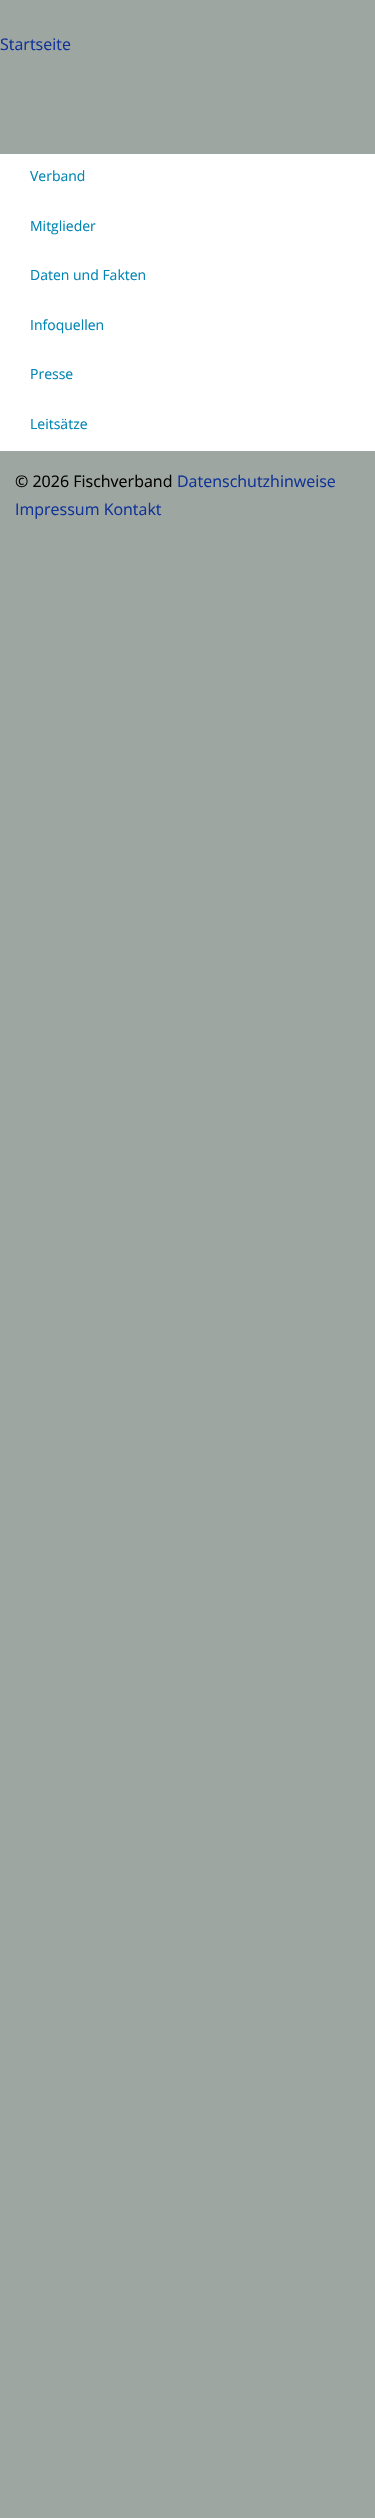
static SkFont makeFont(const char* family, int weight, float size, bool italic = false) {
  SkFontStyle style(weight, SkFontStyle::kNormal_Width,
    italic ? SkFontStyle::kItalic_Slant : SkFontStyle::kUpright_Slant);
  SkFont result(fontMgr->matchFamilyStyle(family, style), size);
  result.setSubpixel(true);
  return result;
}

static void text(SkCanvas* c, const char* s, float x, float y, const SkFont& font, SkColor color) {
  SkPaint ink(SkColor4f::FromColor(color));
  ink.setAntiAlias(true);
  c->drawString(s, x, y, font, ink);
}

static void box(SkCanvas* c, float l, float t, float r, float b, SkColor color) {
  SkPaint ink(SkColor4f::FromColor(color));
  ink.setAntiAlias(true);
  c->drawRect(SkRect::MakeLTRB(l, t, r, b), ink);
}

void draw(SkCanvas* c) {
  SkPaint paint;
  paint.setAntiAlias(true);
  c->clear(0xff9ea6a1);
  SkFont face1 = makeFont("Open Sans", 400, 16);
  text(c, "Startseite", 0, 50, face1, 0xff103397);
  box(c, 0, 154, 375, 451, 0xffffffff);
  SkFont face2 = makeFont("Open Sans", 400, 14);
  text(c, "Verband", 30, 181, face2, 0xff0085b4);
  text(c, "Mitglieder", 30, 231, face2, 0xff0085b4);
  text(c, "Daten und Fakten", 30, 280, face2, 0xff0085b4);
  text(c, "Infoquellen", 30, 330, face2, 0xff0085b4);
  text(c, "Presse", 30, 379, face2, 0xff0085b4);
  text(c, "Leitsätze", 30, 429, face2, 0xff0085b4);
  text(c, "© 2026 Fischverband", 15, 487, face1, 0xff000000);
  text(c, "Datenschutzhinweise", 177, 487, face1, 0xff103397);
  text(c, "Impressum Kontakt", 15, 515, face1, 0xff103397);
}
